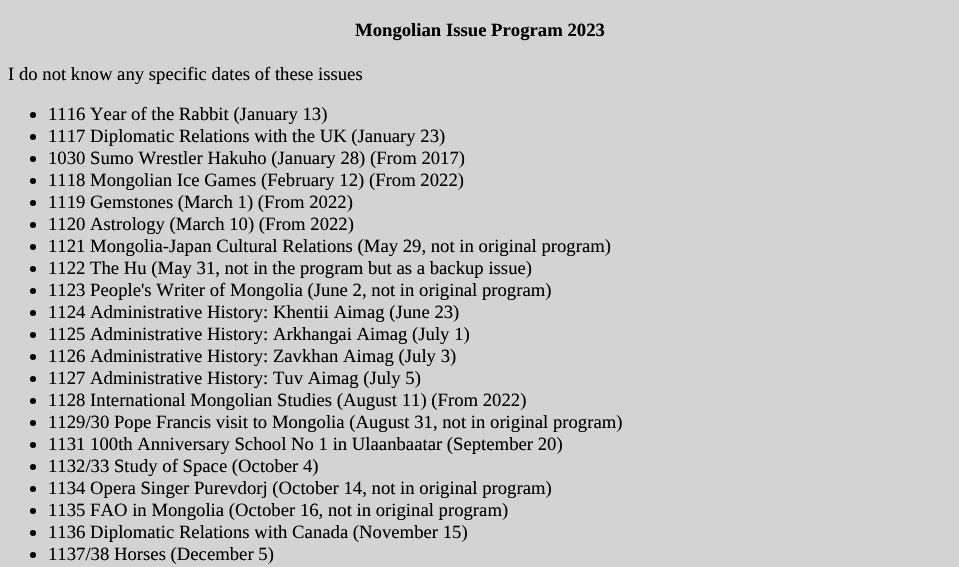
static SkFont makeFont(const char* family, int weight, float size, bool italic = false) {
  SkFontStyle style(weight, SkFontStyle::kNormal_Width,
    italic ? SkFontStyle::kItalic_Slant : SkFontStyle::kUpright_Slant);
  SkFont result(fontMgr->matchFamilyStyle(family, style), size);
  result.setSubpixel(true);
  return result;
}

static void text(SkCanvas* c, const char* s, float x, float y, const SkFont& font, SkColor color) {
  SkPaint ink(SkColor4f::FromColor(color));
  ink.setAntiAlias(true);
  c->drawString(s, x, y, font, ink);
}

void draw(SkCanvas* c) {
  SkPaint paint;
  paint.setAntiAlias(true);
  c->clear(0xffd3d3d3);
  SkFont face1 = makeFont("Liberation Serif", 700, 18.7f);
  text(c, "Mongolian Issue Program 2023", 355, 36, face1, 0xff000000);
  SkFont face2 = makeFont("Liberation Serif", 400, 18.7f);
  text(c, "I do not know any specific dates of these issues", 8, 80, face2, 0xff000000);
  paint.setColor(0xff000000);
  c->drawCircle(33, 115, 3, paint);
  text(c, "1116 Year of the Rabbit (January 13)", 48, 120, face2, 0xff000000);
  c->drawCircle(33, 137, 3, paint);
  text(c, "1117 Diplomatic Relations with the UK (January 23)", 48, 142, face2, 0xff000000);
  c->drawCircle(33, 159, 3, paint);
  text(c, "1030 Sumo Wrestler Hakuho (January 28) (From 2017)", 48, 164, face2, 0xff000000);
  c->drawCircle(33, 181, 3, paint);
  text(c, "1118 Mongolian Ice Games (February 12) (From 2022)", 48, 186, face2, 0xff000000);
  c->drawCircle(33, 203, 3, paint);
  text(c, "1119 Gemstones (March 1) (From 2022)", 48, 208, face2, 0xff000000);
  c->drawCircle(33, 225, 3, paint);
  text(c, "1120 Astrology (March 10) (From 2022)", 48, 230, face2, 0xff000000);
  c->drawCircle(33, 247, 3, paint);
  text(c, "1121 Mongolia-Japan Cultural Relations (May 29, not in original program)", 48, 252, face2, 0xff000000);
  c->drawCircle(33, 269, 3, paint);
  text(c, "1122 The Hu (May 31, not in the program but as a backup issue)", 48, 274, face2, 0xff000000);
  c->drawCircle(33, 291, 3, paint);
  text(c, "1123 People's Writer of Mongolia (June 2, not in original program)", 48, 296, face2, 0xff000000);
  c->drawCircle(33, 313, 3, paint);
  text(c, "1124 Administrative History: Khentii Aimag (June 23)", 48, 318, face2, 0xff000000);
  c->drawCircle(33, 335, 3, paint);
  text(c, "1125 Administrative History: Arkhangai Aimag (July 1)", 48, 340, face2, 0xff000000);
  c->drawCircle(33, 357, 3, paint);
  text(c, "1126 Administrative History: Zavkhan Aimag (July 3)", 48, 362, face2, 0xff000000);
  c->drawCircle(33, 379, 3, paint);
  text(c, "1127 Administrative History: Tuv Aimag (July 5)", 48, 384, face2, 0xff000000);
  c->drawCircle(33, 401, 3, paint);
  text(c, "1128 International Mongolian Studies (August 11) (From 2022)", 48, 406, face2, 0xff000000);
  c->drawCircle(33, 423, 3, paint);
  text(c, "1129/30 Pope Francis visit to Mongolia (August 31, not in original program)", 48, 428, face2, 0xff000000);
  c->drawCircle(33, 445, 3, paint);
  text(c, "1131 100th Anniversary School No 1 in Ulaanbaatar (September 20)", 48, 450, face2, 0xff000000);
  c->drawCircle(33, 467, 3, paint);
  text(c, "1132/33 Study of Space (October 4)", 48, 472, face2, 0xff000000);
  c->drawCircle(33, 489, 3, paint);
  text(c, "1134 Opera Singer Purevdorj (October 14, not in original program)", 48, 494, face2, 0xff000000);
  c->drawCircle(33, 511, 3, paint);
  text(c, "1135 FAO in Mongolia (October 16, not in original program)", 48, 516, face2, 0xff000000);
  c->drawCircle(33, 533, 3, paint);
  text(c, "1136 Diplomatic Relations with Canada (November 15)", 48, 538, face2, 0xff000000);
  c->drawCircle(33, 555, 3, paint);
  text(c, "1137/38 Horses (December 5)", 48, 560, face2, 0xff000000);
}
